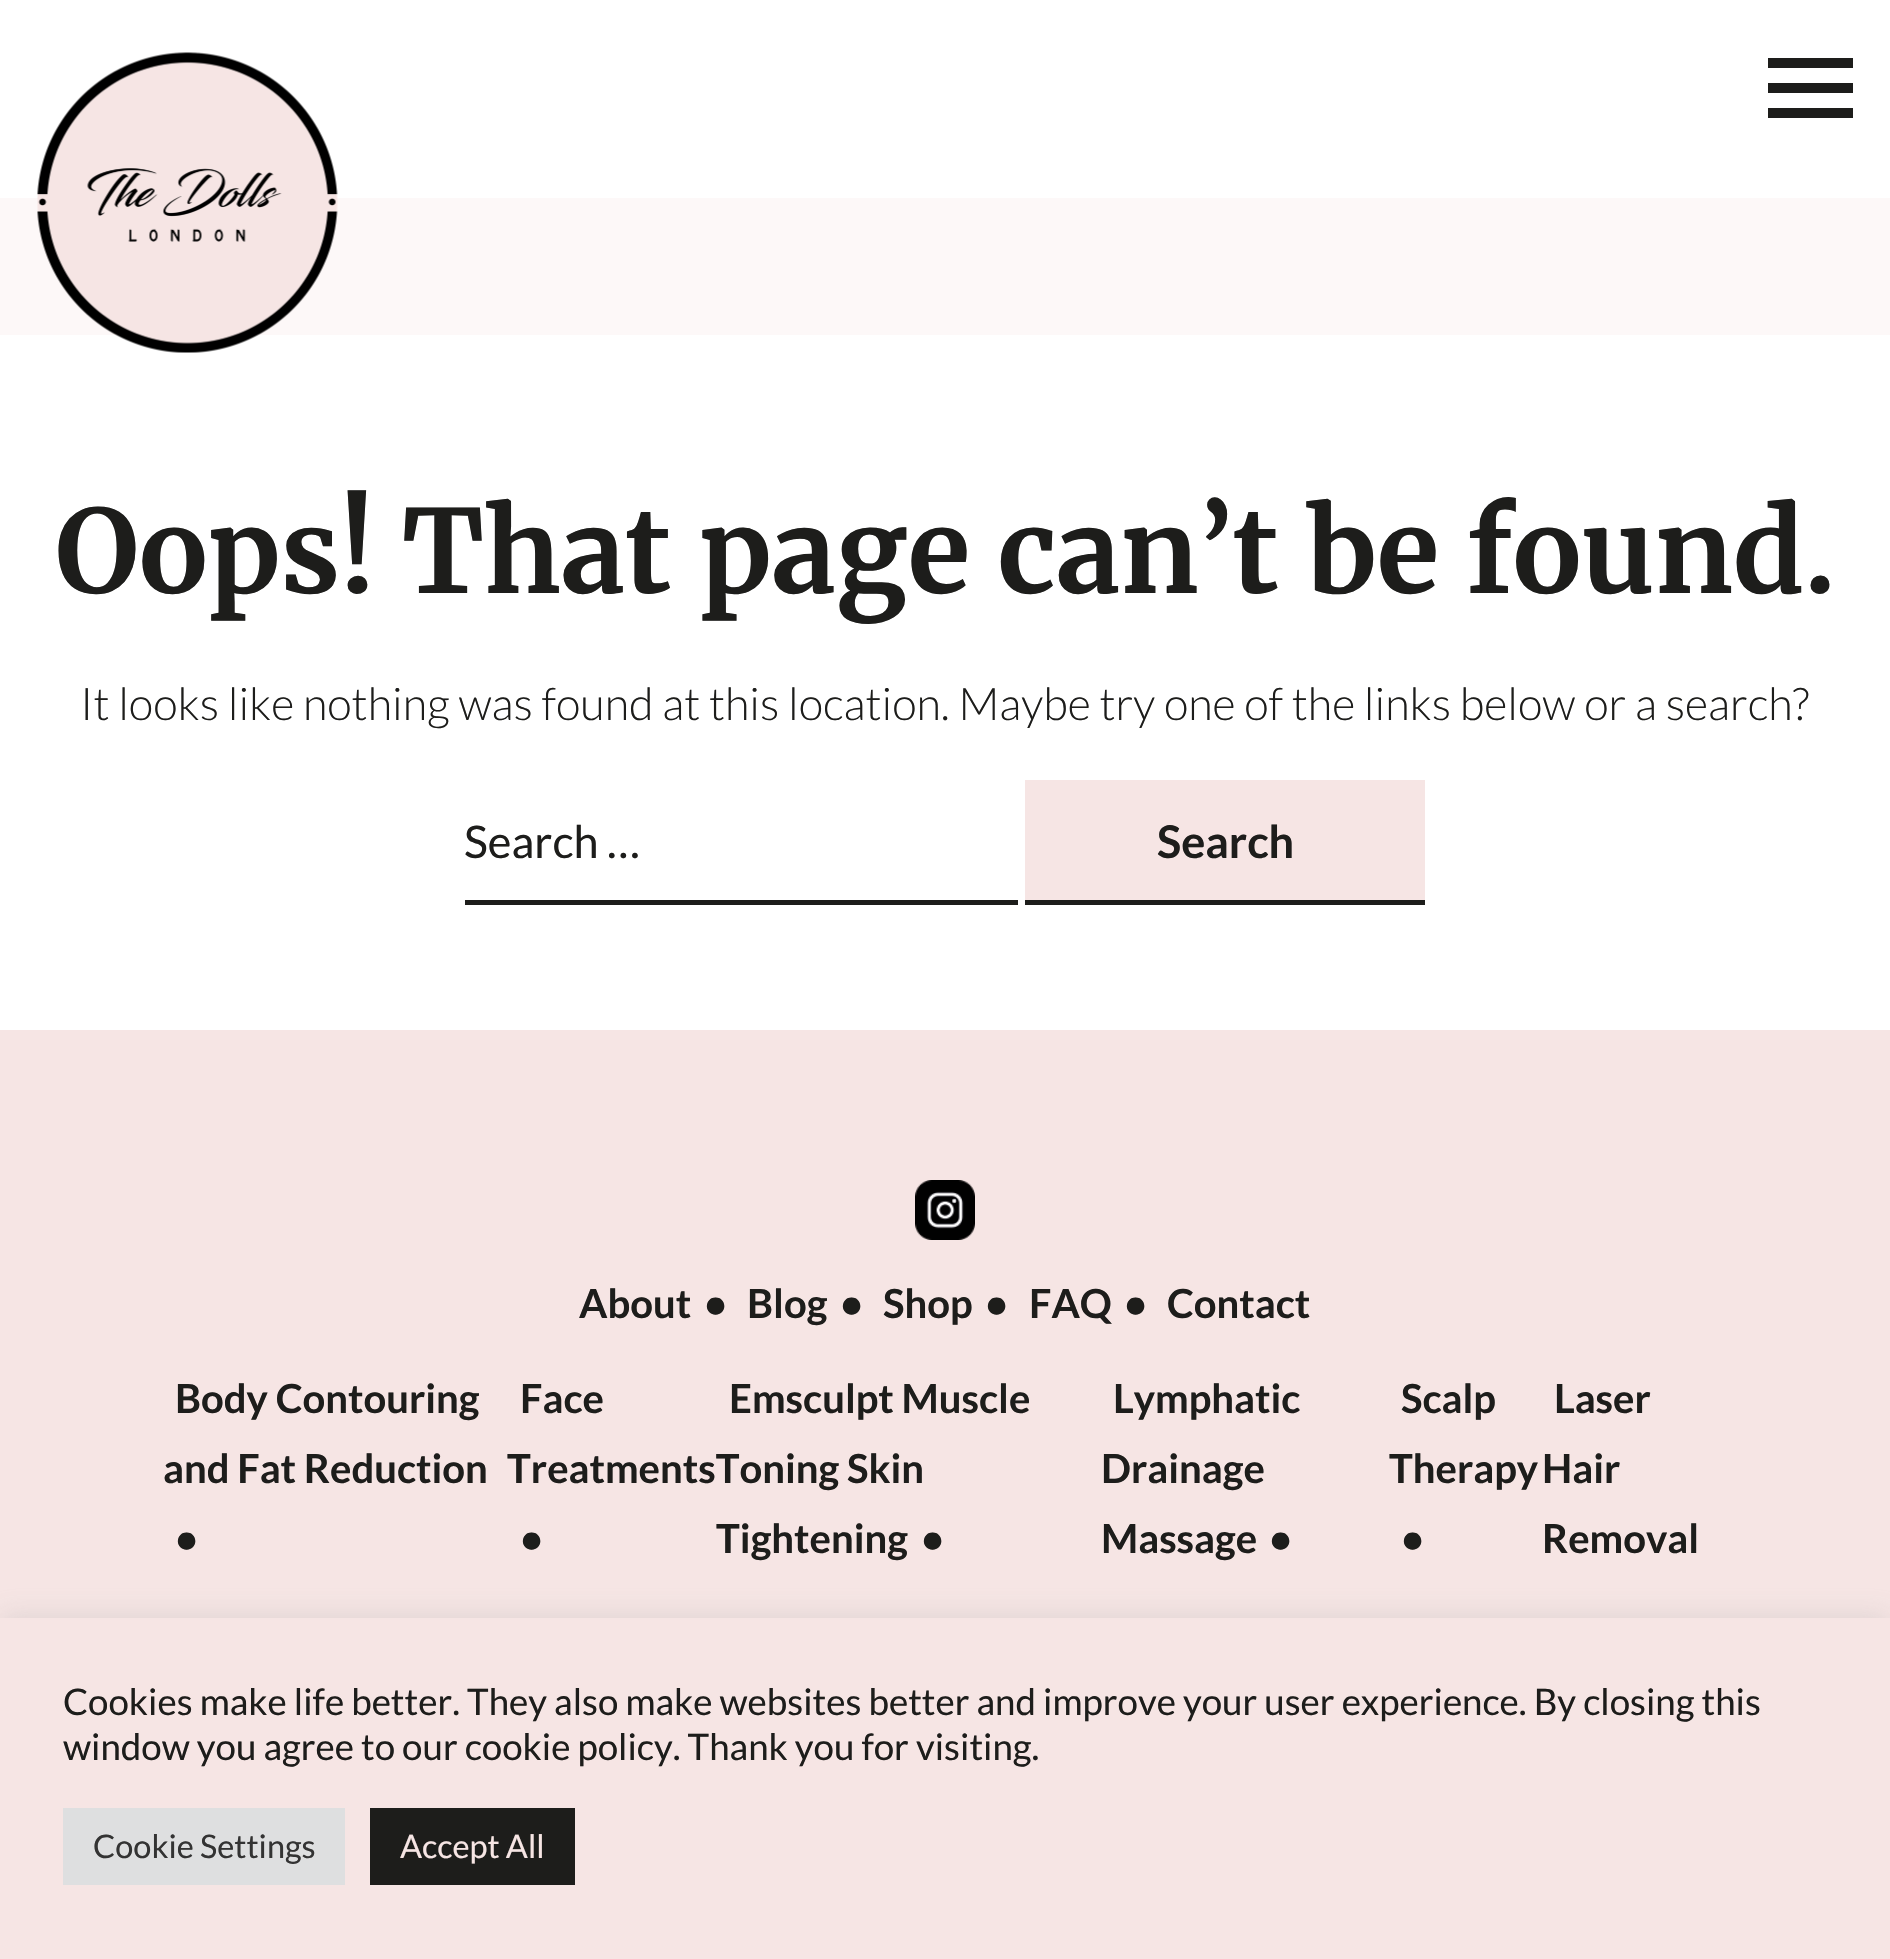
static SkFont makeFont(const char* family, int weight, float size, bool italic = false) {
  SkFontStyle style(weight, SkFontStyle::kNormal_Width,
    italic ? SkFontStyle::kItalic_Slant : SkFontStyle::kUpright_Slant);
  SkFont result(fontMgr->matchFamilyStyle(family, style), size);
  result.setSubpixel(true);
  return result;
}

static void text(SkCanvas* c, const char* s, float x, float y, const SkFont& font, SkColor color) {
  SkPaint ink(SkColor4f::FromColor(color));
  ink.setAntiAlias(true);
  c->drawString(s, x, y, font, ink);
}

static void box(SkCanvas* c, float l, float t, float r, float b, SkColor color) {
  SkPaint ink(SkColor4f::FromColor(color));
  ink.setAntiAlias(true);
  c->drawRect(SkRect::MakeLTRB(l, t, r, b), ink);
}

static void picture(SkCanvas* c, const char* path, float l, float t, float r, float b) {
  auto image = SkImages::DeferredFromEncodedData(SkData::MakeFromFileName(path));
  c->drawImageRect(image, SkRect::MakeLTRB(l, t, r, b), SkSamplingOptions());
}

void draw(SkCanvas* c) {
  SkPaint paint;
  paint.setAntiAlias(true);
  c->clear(0xffffffff);
  box(c, 0, 198, 1890, 335, 0xfffdf8f8);
  picture(c, "img_01.png", 37, 52, 338, 353);
  box(c, 1768, 83, 1853, 93, 0xff1d1d1b);
  box(c, 1768, 58, 1853, 68, 0xff1d1d1b);
  box(c, 1768, 108, 1853, 118, 0xff1d1d1b);
  SkFont face1 = makeFont("Merriweather", 700, 115);
  text(c, "Oops! That page can’t be found.", 55, 593, face1, 0xff1d1d1b);
  SkFont face2 = makeFont("Lato", 300, 45);
  text(c, "It looks like nothing was found at this location. Maybe try one of the links below or a search?", 80, 720, face2, 0xff1d1d1b);
  box(c, 465, 900, 1018, 905, 0xff1d1d1b);
  SkFont face3 = makeFont("Lato", 400, 45);
  text(c, "Search …", 464, 858, face3, 0xff1d1d1b);
  box(c, 1025, 780, 1425, 900, 0xfff6e5e4);
  box(c, 1025, 900, 1425, 905, 0xff1d1d1b);
  SkFont face4 = makeFont("Lato", 700, 45);
  text(c, "Search", 1157, 858, face4, 0xff1d1d1b);
  box(c, 0, 1030, 1890, 1618, 0xfff6e5e4);
  picture(c, "img_02.png", 915, 1180, 975, 1240);
  SkFont face5 = makeFont("Lato", 700, 40);
  text(c, "About", 579, 1318, face5, 0xff1d1d1b);
  text(c, "•", 704, 1318, face5, 0xff1d1d1b);
  text(c, "Blog", 747, 1318, face5, 0xff1d1d1b);
  text(c, "•", 840, 1318, face5, 0xff1d1d1b);
  text(c, "Shop", 883, 1318, face5, 0xff1d1d1b);
  text(c, "•", 985, 1318, face5, 0xff1d1d1b);
  text(c, "FAQ", 1029, 1318, face5, 0xff1d1d1b);
  text(c, "•", 1124, 1318, face5, 0xff1d1d1b);
  text(c, "Contact", 1167, 1318, face5, 0xff1d1d1b);
  text(c, "Body Contouring", 175, 1413, face5, 0xff1d1d1b);
  text(c, "and Fat Reduction", 163, 1483, face5, 0xff1d1d1b);
  text(c, "•", 175, 1553, face5, 0xff1d1d1b);
  text(c, "Emsculpt Muscle", 729, 1413, face5, 0xff1d1d1b);
  text(c, "Tightening", 716, 1553, face5, 0xff1d1d1b);
  text(c, "•", 921, 1553, face5, 0xff1d1d1b);
  text(c, "Lymphatic", 1113, 1413, face5, 0xff1d1d1b);
  text(c, "Drainage", 1101, 1483, face5, 0xff1d1d1b);
  text(c, "Massage", 1101, 1553, face5, 0xff1d1d1b);
  text(c, "•", 1269, 1553, face5, 0xff1d1d1b);
  text(c, "Scalp", 1401, 1413, face5, 0xff1d1d1b);
  text(c, "Therapy", 1389, 1483, face5, 0xff1d1d1b);
  text(c, "•", 1401, 1553, face5, 0xff1d1d1b);
  text(c, "Face", 520, 1413, face5, 0xff1d1d1b);
  text(c, "TreatmentsToning Skin", 507, 1483, face5, 0xff1d1d1b);
  text(c, "•", 520, 1553, face5, 0xff1d1d1b);
  text(c, "Laser", 1554, 1413, face5, 0xff1d1d1b);
  text(c, "Hair", 1542, 1483, face5, 0xff1d1d1b);
  text(c, "Removal", 1542, 1553, face5, 0xff1d1d1b);
  paint.setColor(0x4dacabab);
  paint.setMaskFilter(SkMaskFilter::MakeBlur(kNormal_SkBlurStyle, 12.5f));
  c->drawRect(SkRect::MakeLTRB(0, 1615, 1890, 1958), paint);
  paint.setMaskFilter(nullptr);
  box(c, 0, 1618, 1890, 1959, 0xfff6e5e4);
  SkFont face6 = makeFont("Lato", 400, 36.65f);
  text(c, "Cookies make life better. They also make websites better and improve your user experience. By closing this", 63, 1715, face6, 0xff1d1d1b);
  text(c, "window you agree to our cookie policy. Thank you for visiting.", 63, 1760, face6, 0xff1d1d1b);
  box(c, 63, 1808, 345, 1885, 0xffdedfe0);
  SkFont face7 = makeFont("Lato", 400, 32.5f);
  text(c, "Cookie Settings", 93, 1858, face7, 0xff333333);
  box(c, 370, 1808, 575, 1885, 0xff1d1d1b);
  text(c, "Accept All", 400, 1858, face7, 0xfff6e5e4);
}
